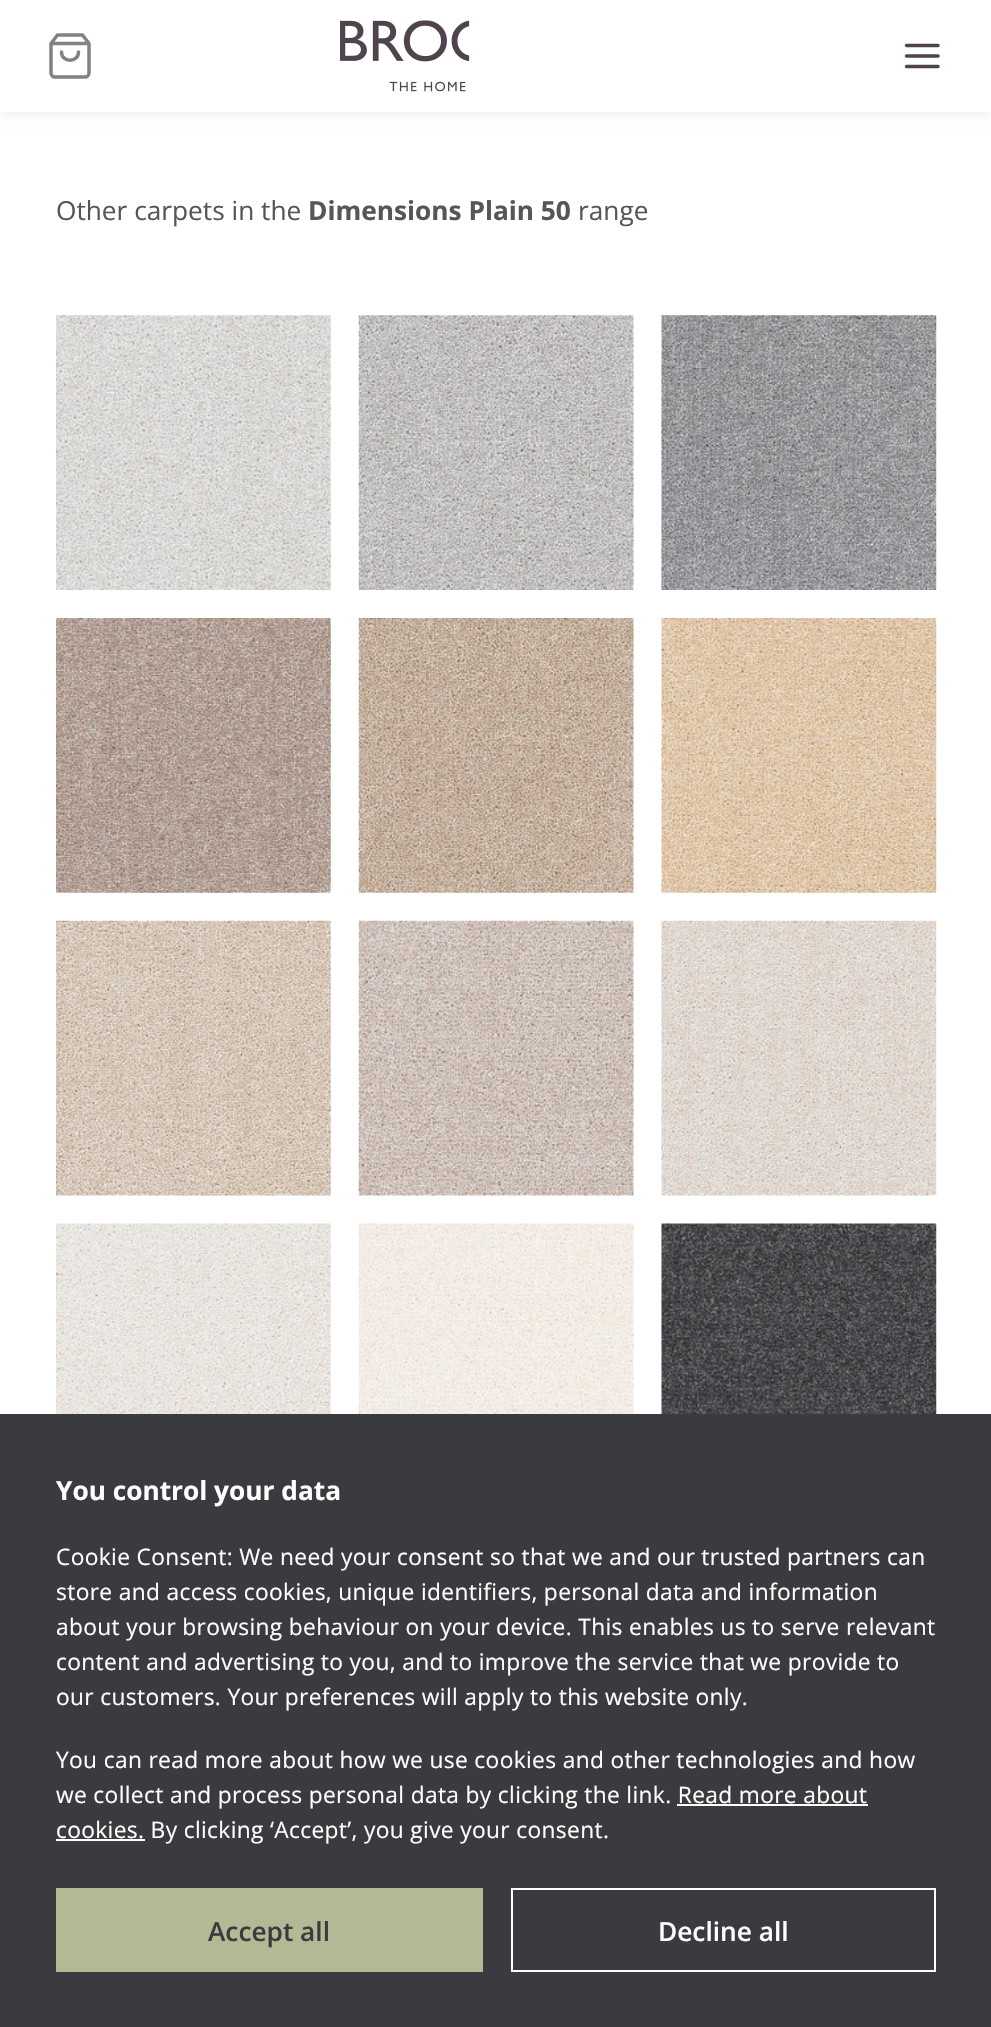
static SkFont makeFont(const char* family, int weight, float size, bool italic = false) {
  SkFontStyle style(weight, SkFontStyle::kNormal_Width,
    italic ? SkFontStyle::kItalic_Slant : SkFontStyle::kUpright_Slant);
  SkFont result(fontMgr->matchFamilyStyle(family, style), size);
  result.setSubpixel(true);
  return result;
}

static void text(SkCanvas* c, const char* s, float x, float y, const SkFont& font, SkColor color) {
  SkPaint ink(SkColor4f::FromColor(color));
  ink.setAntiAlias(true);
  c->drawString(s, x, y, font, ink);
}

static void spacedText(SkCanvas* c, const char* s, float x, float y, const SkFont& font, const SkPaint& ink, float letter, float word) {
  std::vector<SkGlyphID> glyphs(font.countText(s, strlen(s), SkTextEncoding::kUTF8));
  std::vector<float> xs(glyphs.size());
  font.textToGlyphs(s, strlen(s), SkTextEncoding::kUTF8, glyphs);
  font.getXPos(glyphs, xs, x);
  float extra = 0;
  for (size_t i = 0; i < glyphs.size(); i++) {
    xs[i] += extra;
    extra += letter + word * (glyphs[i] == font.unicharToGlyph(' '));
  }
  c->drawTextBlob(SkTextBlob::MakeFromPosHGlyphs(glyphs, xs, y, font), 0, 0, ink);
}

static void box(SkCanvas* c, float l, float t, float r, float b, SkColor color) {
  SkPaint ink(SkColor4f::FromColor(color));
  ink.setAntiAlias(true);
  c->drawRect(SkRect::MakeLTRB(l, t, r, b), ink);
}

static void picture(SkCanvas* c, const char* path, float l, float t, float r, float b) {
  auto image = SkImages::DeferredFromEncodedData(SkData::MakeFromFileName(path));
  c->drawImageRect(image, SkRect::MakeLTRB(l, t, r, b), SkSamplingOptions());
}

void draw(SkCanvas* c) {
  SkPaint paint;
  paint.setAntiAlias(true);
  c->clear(0xffffffff);
  paint.setColor(0x0d000000);
  paint.setMaskFilter(SkMaskFilter::MakeBlur(kNormal_SkBlurStyle, 4.5f));
  c->drawRect(SkRect::MakeLTRB(0, 4, 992, 116), paint);
  paint.setMaskFilter(nullptr);
  box(c, 0, 0, 991, 112, 0xffffffff);
  paint.setStyle(SkPaint::kStroke_Style);
  paint.setStrokeWidth(3.5f);
  paint.setStrokeCap(SkPaint::kRound_Cap);
  paint.setStrokeJoin(SkPaint::kRound_Join);
  paint.setColor(0xff828282);
  c->drawPath(SkPathBuilder().moveTo(57.5f, 35).lineTo(51, 43.5f).lineTo(51, 73).cubicTo(51, 75.5f, 53, 77, 55, 77).lineTo(85, 77).cubicTo(87, 77, 89, 75.5f, 89, 73).lineTo(89, 43.5f).lineTo(82.5f, 35).close().moveTo(51, 43.5f).lineTo(89, 43.5f).moveTo(78.5f, 52).cubicTo(78.5f, 63, 61.5f, 63, 61.5f, 52).detach(), paint);
  picture(c, "img_01.png", 340, 20, 470, 92);
  paint.setColor(0xff4f444d);
  c->drawPath(SkPathBuilder().moveTo(906.5f, 56).lineTo(938, 56).moveTo(906.5f, 45.5f).lineTo(938, 45.5f).moveTo(906.5f, 66.5f).lineTo(938, 66.5f).detach(), paint);
  SkFont face1 = makeFont("Open Sans", 400, 26.25f);
  text(c, "Other carpets in the", 56, 220, face1, 0xff54565a);
  SkFont face2 = makeFont("Open Sans", 700, 26.25f);
  text(c, "Dimensions Plain 50", 308, 220, face2, 0xff54565a);
  text(c, "range", 578, 220, face1, 0xff54565a);
  picture(c, "img_02.png", 56, 315, 331, 590);
  picture(c, "img_03.png", 358, 315, 634, 590);
  picture(c, "img_04.png", 661, 315, 937, 590);
  picture(c, "img_05.png", 56, 618, 331, 893);
  picture(c, "img_06.png", 358, 618, 634, 893);
  picture(c, "img_07.png", 661, 618, 937, 893);
  picture(c, "img_08.png", 56, 920, 331, 1196);
  picture(c, "img_09.png", 358, 920, 634, 1196);
  picture(c, "img_10.png", 661, 920, 937, 1196);
  picture(c, "img_11.png", 56, 1223, 331, 1414);
  picture(c, "img_12.png", 358, 1223, 634, 1414);
  picture(c, "img_13.png", 661, 1223, 937, 1414);
  box(c, 0, 1414, 991, 2027, 0xff3a3b3e);
  text(c, "You control your data", 56, 1500, face2, 0xffffffff);
  SkFont face3 = makeFont("Open Sans", 400, 22.75f);
  paint.setStyle(SkPaint::kFill_Style);
  paint.setColor(0xffffffff);
  spacedText(c, "Cookie Consent: We need your consent so that we and our trusted partners can", 56, 1565, face3, paint, 0.35f, 0);
  spacedText(c, "store and access cookies, unique identifiers, personal data and information", 56, 1600, face3, paint, 0.35f, 0);
  spacedText(c, "about your browsing behaviour on your device. This enables us to serve relevant", 56, 1635, face3, paint, 0.35f, 0);
  spacedText(c, "content and advertising to you, and to improve the service that we provide to", 56, 1670, face3, paint, 0.35f, 0);
  spacedText(c, "our customers. Your preferences will apply to this website only.", 56, 1705, face3, paint, 0.35f, 0);
  spacedText(c, "You can read more about how we use cookies and other technologies and how", 56, 1768, face3, paint, 0.35f, 0);
  spacedText(c, "we collect and process personal data by clicking the link. Read more about", 56, 1803, face3, paint, 0.35f, 0);
  box(c, 56, 1839, 145, 1841, 0xffffffff);
  spacedText(c, "cookies. By clicking ‘Accept’, you give your consent.", 56, 1838, face3, paint, 0.35f, 0);
  box(c, 677, 1804, 868, 1806, 0xffffffff);
  box(c, 56, 1888, 483, 1972, 0xffb3b995);
  SkFont face4 = makeFont("Open Sans", 600, 26.25f);
  text(c, "Accept all", 208, 1941, face4, 0xff3a3b3e);
  paint.setStyle(SkPaint::kStroke_Style);
  paint.setStrokeWidth(2);
  paint.setStrokeCap(SkPaint::kButt_Cap);
  paint.setStrokeJoin(SkPaint::kMiter_Join);
  c->drawRect(SkRect::MakeLTRB(512, 1889, 935, 1971), paint);
  text(c, "Decline all", 658, 1941, face4, 0xffffffff);
}
